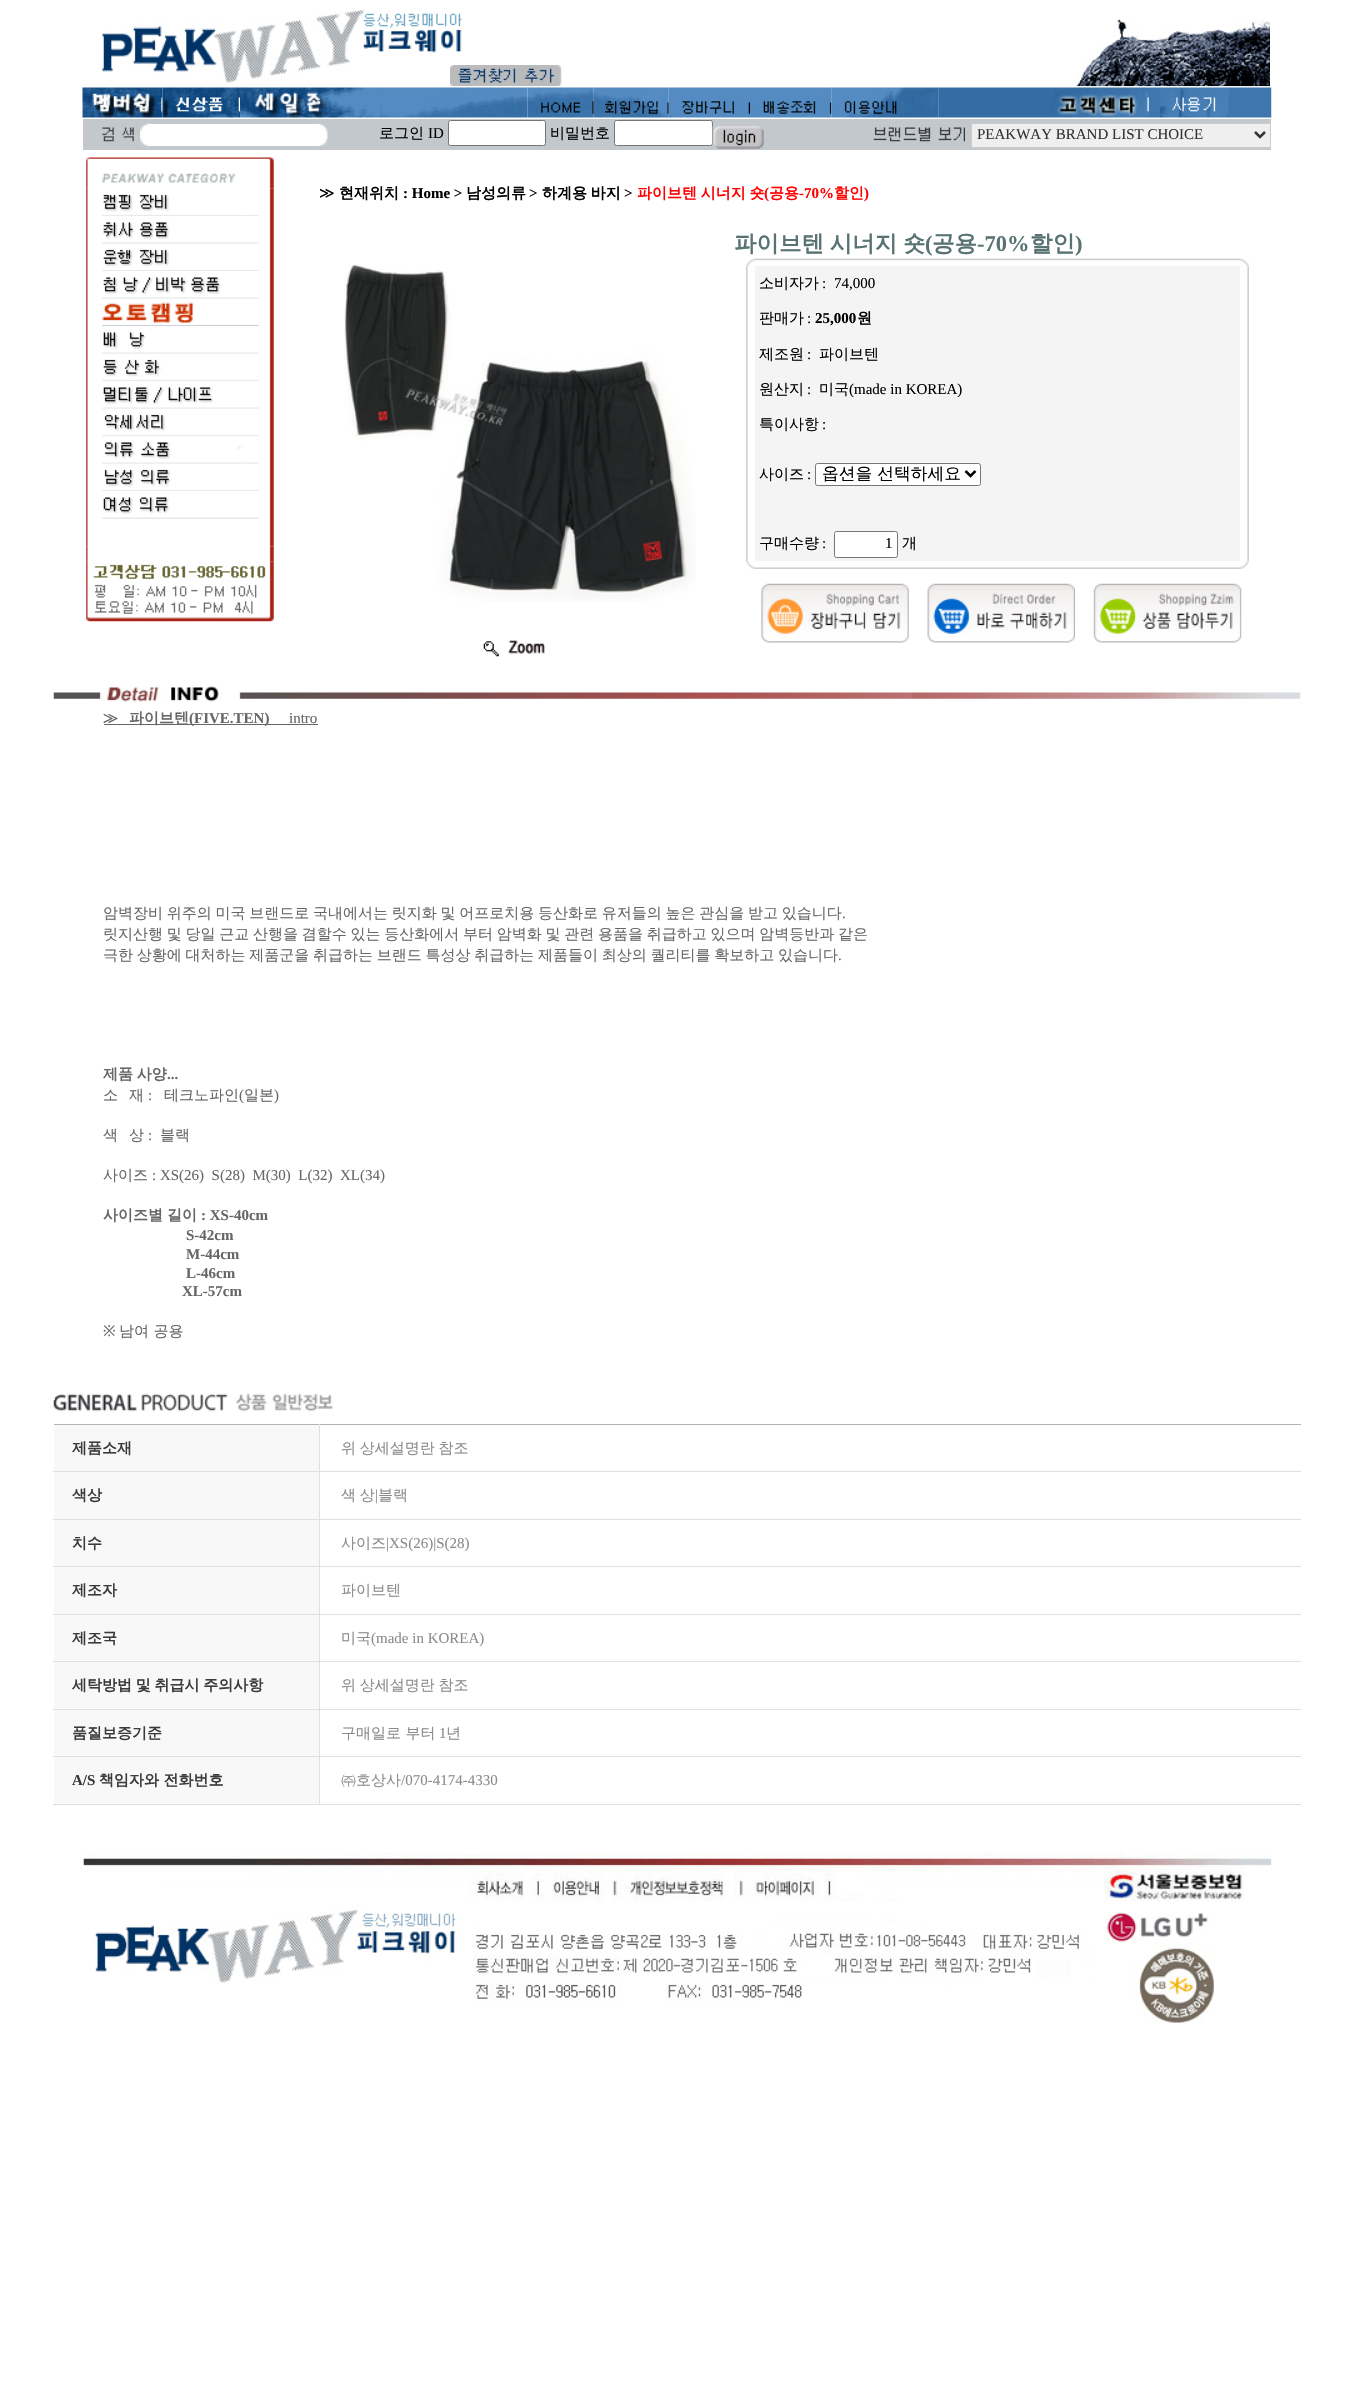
static SkFont makeFont(const char* family, int weight, float size, bool italic = false) {
  SkFontStyle style(weight, SkFontStyle::kNormal_Width,
    italic ? SkFontStyle::kItalic_Slant : SkFontStyle::kUpright_Slant);
  SkFont result(fontMgr->matchFamilyStyle(family, style), size);
  result.setSubpixel(true);
  return result;
}

static void text(SkCanvas* c, const char* s, float x, float y, const SkFont& font, SkColor color) {
  SkPaint ink(SkColor4f::FromColor(color));
  ink.setAntiAlias(true);
  c->drawString(s, x, y, font, ink);
}

static void spacedText(SkCanvas* c, const char* s, float x, float y, const SkFont& font, const SkPaint& ink, float letter, float word) {
  std::vector<SkGlyphID> glyphs(font.countText(s, strlen(s), SkTextEncoding::kUTF8));
  std::vector<float> xs(glyphs.size());
  font.textToGlyphs(s, strlen(s), SkTextEncoding::kUTF8, glyphs);
  font.getXPos(glyphs, xs, x);
  float extra = 0;
  for (size_t i = 0; i < glyphs.size(); i++) {
    xs[i] += extra;
    extra += letter + word * (glyphs[i] == font.unicharToGlyph(' '));
  }
  c->drawTextBlob(SkTextBlob::MakeFromPosHGlyphs(glyphs, xs, y, font), 0, 0, ink);
}

static void box(SkCanvas* c, float l, float t, float r, float b, SkColor color) {
  SkPaint ink(SkColor4f::FromColor(color));
  ink.setAntiAlias(true);
  c->drawRect(SkRect::MakeLTRB(l, t, r, b), ink);
}

static void picture(SkCanvas* c, const char* path, float l, float t, float r, float b) {
  auto image = SkImages::DeferredFromEncodedData(SkData::MakeFromFileName(path));
  c->drawImageRect(image, SkRect::MakeLTRB(l, t, r, b), SkSamplingOptions());
}

void draw(SkCanvas* c) {
  SkPaint paint;
  paint.setAntiAlias(true);
  c->clear(0xffffffff);
  picture(c, "img_01.png", 102, 10, 364, 83);
  picture(c, "img_02.png", 363, 13, 462, 53);
  picture(c, "img_03.png", 450, 65, 562, 87);
  picture(c, "img_04.png", 1076, 19, 1270, 87);
  picture(c, "img_05.png", 82, 87, 163, 118);
  picture(c, "img_06.png", 162, 87, 240, 118);
  picture(c, "img_07.png", 240, 87, 380, 118);
  picture(c, "img_08.png", 380, 86, 528, 118);
  picture(c, "img_09.png", 527, 86, 594, 118);
  picture(c, "img_10.png", 593, 87, 669, 118);
  picture(c, "img_11.png", 668, 87, 750, 118);
  picture(c, "img_12.png", 750, 87, 832, 119);
  picture(c, "img_13.png", 831, 87, 910, 118);
  picture(c, "img_14.png", 910, 87, 939, 118);
  picture(c, "img_15.png", 938, 86, 1272, 118);
  box(c, 83, 119, 1271, 150, 0xffc3c8cc);
  picture(c, "img_16.png", 102, 127, 134, 142);
  picture(c, "img_17.png", 140, 123, 150, 147);
  box(c, 150, 124, 319, 146, 0xffffffff);
  picture(c, "img_18.png", 318, 123, 328, 147);
  SkFont face1 = makeFont("WenQuanYi Zen Hei", 500, 15);
  text(c, "로그인", 379, 138, face1, 0xff000000);
  SkFont face2 = makeFont("Liberation Serif", 400, 15);
  text(c, "ID", 428, 138, face2, 0xff000000);
  paint.setColor(0xffffffff);
  c->drawRoundRect(SkRect::MakeLTRB(448.5f, 120.5f, 545.5f, 145.5f), 2, 2, paint);
  paint.setStyle(SkPaint::kStroke_Style);
  paint.setStrokeWidth(1);
  paint.setColor(0xff767676);
  c->drawRoundRect(SkRect::MakeLTRB(448.5f, 120.5f, 545.5f, 145.5f), 2, 2, paint);
  text(c, "비밀번호", 550, 138, face1, 0xff000000);
  paint.setStyle(SkPaint::kFill_Style);
  paint.setColor(0xffffffff);
  c->drawRoundRect(SkRect::MakeLTRB(614.5f, 120.5f, 712.5f, 145.5f), 2, 2, paint);
  paint.setStyle(SkPaint::kStroke_Style);
  paint.setColor(0xff767676);
  c->drawRoundRect(SkRect::MakeLTRB(614.5f, 120.5f, 712.5f, 145.5f), 2, 2, paint);
  picture(c, "img_19.png", 712, 126, 764, 149);
  picture(c, "img_20.png", 873, 127, 965, 142);
  paint.setStyle(SkPaint::kFill_Style);
  paint.setColor(0xffefefef);
  c->drawRect(SkRect::MakeLTRB(971.5f, 123.5f, 1270.5f, 147.5f), paint);
  paint.setStyle(SkPaint::kStroke_Style);
  paint.setColor(0xffcccccc);
  c->drawRect(SkRect::MakeLTRB(971.5f, 123.5f, 1270.5f, 147.5f), paint);
  paint.setStrokeWidth(2.5f);
  paint.setColor(0xff333333);
  c->drawPath(SkPathBuilder().moveTo(1255, 132).lineTo(1260, 137).lineTo(1265, 132).detach(), paint);
  text(c, "PEAKWAY BRAND LIST CHOICE", 977, 139, face2, 0xff333333);
  picture(c, "img_22.png", 86, 188, 274, 547);
  picture(c, "img_21.png", 86, 157, 274, 189);
  picture(c, "img_23.png", 102, 200, 259, 217);
  picture(c, "img_25.png", 102, 216, 259, 244);
  picture(c, "img_24.png", 102, 194, 259, 217);
  picture(c, "img_27.png", 102, 243, 259, 272);
  picture(c, "img_26.png", 102, 216, 259, 244);
  picture(c, "img_25.png", 102, 271, 259, 299);
  picture(c, "img_28.png", 102, 243, 259, 272);
  picture(c, "img_27.png", 102, 298, 259, 327);
  picture(c, "img_29.png", 102, 271, 259, 299);
  picture(c, "img_25.png", 102, 326, 259, 354);
  picture(c, "img_30.png", 102, 298, 259, 327);
  picture(c, "img_27.png", 102, 353, 259, 382);
  picture(c, "img_31.png", 102, 326, 259, 354);
  picture(c, "img_25.png", 102, 381, 259, 409);
  picture(c, "img_32.png", 102, 353, 259, 382);
  picture(c, "img_27.png", 102, 408, 259, 437);
  picture(c, "img_33.png", 102, 381, 259, 409);
  picture(c, "img_25.png", 102, 436, 259, 464);
  picture(c, "img_34.png", 102, 408, 259, 437);
  picture(c, "img_27.png", 102, 463, 259, 492);
  picture(c, "img_35.png", 102, 436, 259, 464);
  picture(c, "img_25.png", 102, 491, 259, 519);
  picture(c, "img_36.png", 102, 463, 259, 492);
  picture(c, "img_37.png", 102, 491, 259, 519);
  picture(c, "img_38.png", 86, 546, 274, 562);
  picture(c, "img_39.png", 86, 561, 274, 622);
  SkFont face3 = makeFont("DejaVu Sans", 400, 15);
  text(c, "≫", 319, 198, face3, 0xff000000);
  SkFont face4 = makeFont("WenQuanYi Zen Hei", 700, 15);
  text(c, "현재위치", 339, 198, face4, 0xff000000);
  SkFont face5 = makeFont("Liberation Serif", 700, 15);
  text(c, ": Home >", 403, 198, face5, 0xff000000);
  text(c, "남성의류", 466, 198, face4, 0xff000000);
  text(c, ">", 529, 198, face5, 0xff000000);
  paint.setStyle(SkPaint::kFill_Style);
  paint.setColor(0xff000000);
  spacedText(c, "하계용 바지", 542, 198, face4, paint, 0, -0.75f);
  text(c, ">", 624, 198, face5, 0xff000000);
  paint.setColor(0xffff0000);
  spacedText(c, "파이브텐 시너지 숏", 637, 198, face4, paint, 0, -0.75f);
  text(c, "(", 764, 198, face5, 0xffff0000);
  text(c, "공용", 769, 198, face4, 0xffff0000);
  text(c, "-70%", 799, 198, face5, 0xffff0000);
  text(c, "할인", 834, 198, face4, 0xffff0000);
  text(c, ")", 864, 198, face5, 0xffff0000);
  SkFont face6 = makeFont("WenQuanYi Zen Hei", 700, 22.5f);
  paint.setColor(0xff587372);
  spacedText(c, "파이브텐 시너지 숏", 734, 251, face6, paint, 0, -1);
  SkFont face7 = makeFont("Liberation Serif", 700, 22.5f);
  text(c, "(", 925, 251, face7, 0xff587372);
  text(c, "공용", 932, 251, face6, 0xff587372);
  text(c, "-70%", 977, 251, face7, 0xff587372);
  text(c, "할인", 1030, 251, face6, 0xff587372);
  text(c, ")", 1075, 251, face7, 0xff587372);
  picture(c, "img_40.png", 344, 264, 696, 602);
  picture(c, "img_41.png", 483, 640, 545, 657);
  box(c, 746, 259, 1249, 569, 0xfff4f4f4);
  picture(c, "img_45.png", 746, 266, 755, 562);
  picture(c, "img_42.png", 746, 258, 755, 267);
  picture(c, "img_43.png", 755, 258, 1240, 266);
  picture(c, "img_46.png", 1240, 266, 1249, 562);
  picture(c, "img_44.png", 1240, 258, 1249, 267);
  text(c, "소비자가", 759, 288, face1, 0xff000000);
  text(c, ":", 822, 288, face2, 0xff000000);
  text(c, "74,000", 834, 288, face2, 0xff000000);
  text(c, "판매가", 759, 323, face1, 0xff000000);
  text(c, ":", 807, 323, face2, 0xff000000);
  text(c, "25,000", 815, 323, face5, 0xff000000);
  text(c, "원", 857, 323, face4, 0xff000000);
  text(c, "제조원", 759, 359, face1, 0xff000000);
  text(c, ":", 807, 359, face2, 0xff000000);
  text(c, "파이브텐", 819, 359, face1, 0xff000000);
  text(c, "원산지", 759, 394, face1, 0xff000000);
  text(c, ":", 807, 394, face2, 0xff000000);
  text(c, "미국", 819, 394, face1, 0xff000000);
  text(c, "(made in KOREA)", 849, 394, face2, 0xff000000);
  text(c, "특이사항", 759, 429, face1, 0xff000000);
  text(c, ":", 822, 429, face2, 0xff000000);
  text(c, "사이즈", 759, 479, face1, 0xff000000);
  text(c, ":", 807, 479, face2, 0xff000000);
  paint.setColor(0xffffffff);
  c->drawRoundRect(SkRect::MakeLTRB(815.5f, 463.5f, 980.5f, 485.5f), 2, 2, paint);
  paint.setStyle(SkPaint::kStroke_Style);
  paint.setStrokeWidth(1);
  paint.setColor(0xff767676);
  c->drawRoundRect(SkRect::MakeLTRB(815.5f, 463.5f, 980.5f, 485.5f), 2, 2, paint);
  paint.setStrokeWidth(2.5f);
  paint.setColor(0xff000000);
  c->drawPath(SkPathBuilder().moveTo(965.5f, 471).lineTo(970.5f, 476).lineTo(975.5f, 471).detach(), paint);
  SkFont face8 = makeFont("WenQuanYi Zen Hei", 500, 16.75f);
  text(c, "옵션을 선택하세요", 822, 479, face8, 0xff000000);
  text(c, "구매수량", 759, 548, face1, 0xff000000);
  text(c, ":", 822, 548, face2, 0xff000000);
  paint.setStyle(SkPaint::kFill_Style);
  paint.setColor(0xffffffff);
  c->drawRoundRect(SkRect::MakeLTRB(834.5f, 531.5f, 897.5f, 557.5f), 2, 2, paint);
  paint.setStyle(SkPaint::kStroke_Style);
  paint.setStrokeWidth(1);
  paint.setColor(0xff767676);
  c->drawRoundRect(SkRect::MakeLTRB(834.5f, 531.5f, 897.5f, 557.5f), 2, 2, paint);
  text(c, "1", 885, 548, face2, 0xff000000);
  text(c, "개", 902, 548, face1, 0xff000000);
  picture(c, "img_47.png", 746, 561, 755, 569);
  picture(c, "img_48.png", 755, 561, 1240, 569);
  picture(c, "img_49.png", 1240, 561, 1249, 569);
  picture(c, "img_50.png", 761, 583, 909, 643);
  picture(c, "img_51.png", 927, 583, 1075, 643);
  picture(c, "img_52.png", 1093, 583, 1242, 643);
  picture(c, "img_53.png", 53, 686, 1301, 702);
  text(c, "≫", 103, 723, face4, 0xff666666);
  box(c, 104, 724, 318, 725, 0xff666666);
  text(c, "파이브텐", 129, 723, face4, 0xff666666);
  text(c, "(FIVE.TEN)", 189, 723, face5, 0xff666666);
  text(c, "intro", 289, 723, face2, 0xff666666);
  paint.setStyle(SkPaint::kFill_Style);
  paint.setColor(0xff666666);
  spacedText(c, "암벽장비 위주의 미국 브랜드로 국내에서는 릿지화 및 어프로치용 등산화로 유저들의 높은 관심을 받고 있습니다", 103, 918, face1, paint, 0, -0.75f);
  text(c, ".", 842, 918, face2, 0xff666666);
  spacedText(c, "릿지산행 및 당일 근교 산행을 겸할수 있는 등산화에서 부터 암벽화 및 관련 용품을 취급하고 있으며 암벽등반과 같은", 103, 939, face1, paint, 0, -0.75f);
  spacedText(c, "극한 상황에 대처하는 제품군을 취급하는 브랜드 특성상 취급하는 제품들이 최상의 퀄리티를 확보하고 있습니다", 103, 960, face1, paint, 0, -0.75f);
  text(c, ".", 838, 960, face2, 0xff666666);
  spacedText(c, "제품 사양", 103, 1079, face4, paint, 0, -0.75f);
  text(c, "...", 167, 1079, face5, 0xff666666);
  text(c, "소", 103, 1100, face1, 0xff666666);
  text(c, "재", 129, 1100, face1, 0xff666666);
  text(c, ":", 148, 1100, face2, 0xff666666);
  text(c, "테크노파인", 164, 1100, face1, 0xff666666);
  text(c, "(", 239, 1100, face2, 0xff666666);
  text(c, "일본", 244, 1100, face1, 0xff666666);
  text(c, ")", 274, 1100, face2, 0xff666666);
  text(c, "색", 103, 1140, face1, 0xff666666);
  text(c, "상", 129, 1140, face1, 0xff666666);
  text(c, ":", 148, 1140, face2, 0xff666666);
  text(c, "블랙", 160, 1140, face1, 0xff666666);
  text(c, "사이즈", 103, 1180, face1, 0xff666666);
  text(c, ": XS(26)  S(28)  M(30)  L(32)  XL(34)", 152, 1180, face2, 0xff666666);
  text(c, "사이즈별", 103, 1220, face4, 0xff666666);
  text(c, "길이", 167, 1220, face4, 0xff666666);
  text(c, ": XS-40cm", 201, 1220, face5, 0xff666666);
  text(c, "S-42cm", 186, 1240, face5, 0xff666666);
  text(c, "M-44cm", 186, 1259, face5, 0xff666666);
  text(c, "L-46cm", 186, 1278, face5, 0xff666666);
  text(c, "XL-57cm", 182, 1296, face5, 0xff666666);
  SkFont face9 = makeFont("Noto Sans", 400, 15);
  text(c, "※", 103, 1336, face9, 0xff666666);
  text(c, "남여 공용", 119, 1336, face1, 0xff666666);
  picture(c, "img_54.png", 53, 1393, 333, 1412);
  box(c, 54, 1424, 1301, 1425, 0xffb4b4b4);
  box(c, 54, 1425, 319, 1519, 0xfff8f8f8);
  box(c, 319, 1804, 1301, 1805, 0xffe0e0e0);
  box(c, 319, 1756, 320, 1805, 0xffe0e0e0);
  box(c, 319, 1756, 1301, 1757, 0xffe0e0e0);
  box(c, 319, 1709, 320, 1758, 0xffe0e0e0);
  box(c, 319, 1709, 1301, 1710, 0xffe0e0e0);
  box(c, 319, 1661, 320, 1710, 0xffe0e0e0);
  box(c, 319, 1661, 1301, 1662, 0xffe0e0e0);
  box(c, 319, 1614, 320, 1663, 0xffe0e0e0);
  box(c, 319, 1614, 1301, 1615, 0xffe0e0e0);
  box(c, 319, 1566, 320, 1615, 0xffe0e0e0);
  box(c, 319, 1566, 1301, 1567, 0xffe0e0e0);
  box(c, 319, 1519, 320, 1568, 0xffe0e0e0);
  box(c, 319, 1519, 1301, 1520, 0xffe0e0e0);
  box(c, 319, 1471, 320, 1520, 0xffe0e0e0);
  box(c, 319, 1471, 1301, 1472, 0xffe0e0e0);
  box(c, 319, 1424, 320, 1473, 0xffe0e0e0);
  box(c, 53, 1471, 320, 1472, 0xffe0e0e0);
  text(c, "제품소재", 72, 1453, face4, 0xff3b3b3d);
  paint.setColor(0xff8b8b8b);
  spacedText(c, "위 상세설명란 참조", 341, 1453, face1, paint, 0, -0.75f);
  box(c, 53, 1519, 320, 1520, 0xffe0e0e0);
  text(c, "색상", 72, 1500, face4, 0xff3b3b3d);
  spacedText(c, "색 상", 341, 1500, face1, paint, 0, -0.75f);
  text(c, "|", 375, 1500, face2, 0xff8b8b8b);
  text(c, "블랙", 378, 1500, face1, 0xff8b8b8b);
  box(c, 54, 1520, 319, 1614, 0xfff8f8f8);
  box(c, 53, 1566, 320, 1567, 0xffe0e0e0);
  text(c, "치수", 72, 1548, face4, 0xff3b3b3d);
  text(c, "사이즈", 341, 1548, face1, 0xff8b8b8b);
  text(c, "|XS(26)|S(28)", 386, 1548, face2, 0xff8b8b8b);
  box(c, 53, 1614, 320, 1615, 0xffe0e0e0);
  text(c, "제조자", 72, 1595, face4, 0xff3b3b3d);
  text(c, "파이브텐", 341, 1595, face1, 0xff8b8b8b);
  box(c, 54, 1615, 319, 1709, 0xfff8f8f8);
  box(c, 53, 1661, 320, 1662, 0xffe0e0e0);
  text(c, "제조국", 72, 1643, face4, 0xff3b3b3d);
  text(c, "미국", 341, 1643, face1, 0xff8b8b8b);
  text(c, "(made in KOREA)", 371, 1643, face2, 0xff8b8b8b);
  box(c, 53, 1709, 320, 1710, 0xffe0e0e0);
  paint.setColor(0xff3b3b3d);
  spacedText(c, "세탁방법 및 취급시 주의사항", 72, 1690, face4, paint, 0, -0.75f);
  paint.setColor(0xff8b8b8b);
  spacedText(c, "위 상세설명란 참조", 341, 1690, face1, paint, 0, -0.75f);
  box(c, 54, 1710, 319, 1804, 0xfff8f8f8);
  box(c, 53, 1756, 320, 1757, 0xffe0e0e0);
  text(c, "품질보증기준", 72, 1738, face4, 0xff3b3b3d);
  text(c, "구매일로 부터", 341, 1738, face1, 0xff8b8b8b);
  text(c, "1", 439, 1738, face2, 0xff8b8b8b);
  text(c, "년", 446, 1738, face1, 0xff8b8b8b);
  box(c, 53, 1804, 320, 1805, 0xffe0e0e0);
  text(c, "A/S", 72, 1785, face5, 0xff3b3b3d);
  text(c, "책임자와 전화번호", 99, 1785, face4, 0xff3b3b3d);
  text(c, "㈜호상사", 341, 1785, face1, 0xff8b8b8b);
  text(c, "/070-4174-4330", 401, 1785, face2, 0xff8b8b8b);
  picture(c, "img_55.png", 83, 1852, 1272, 2023);
}
